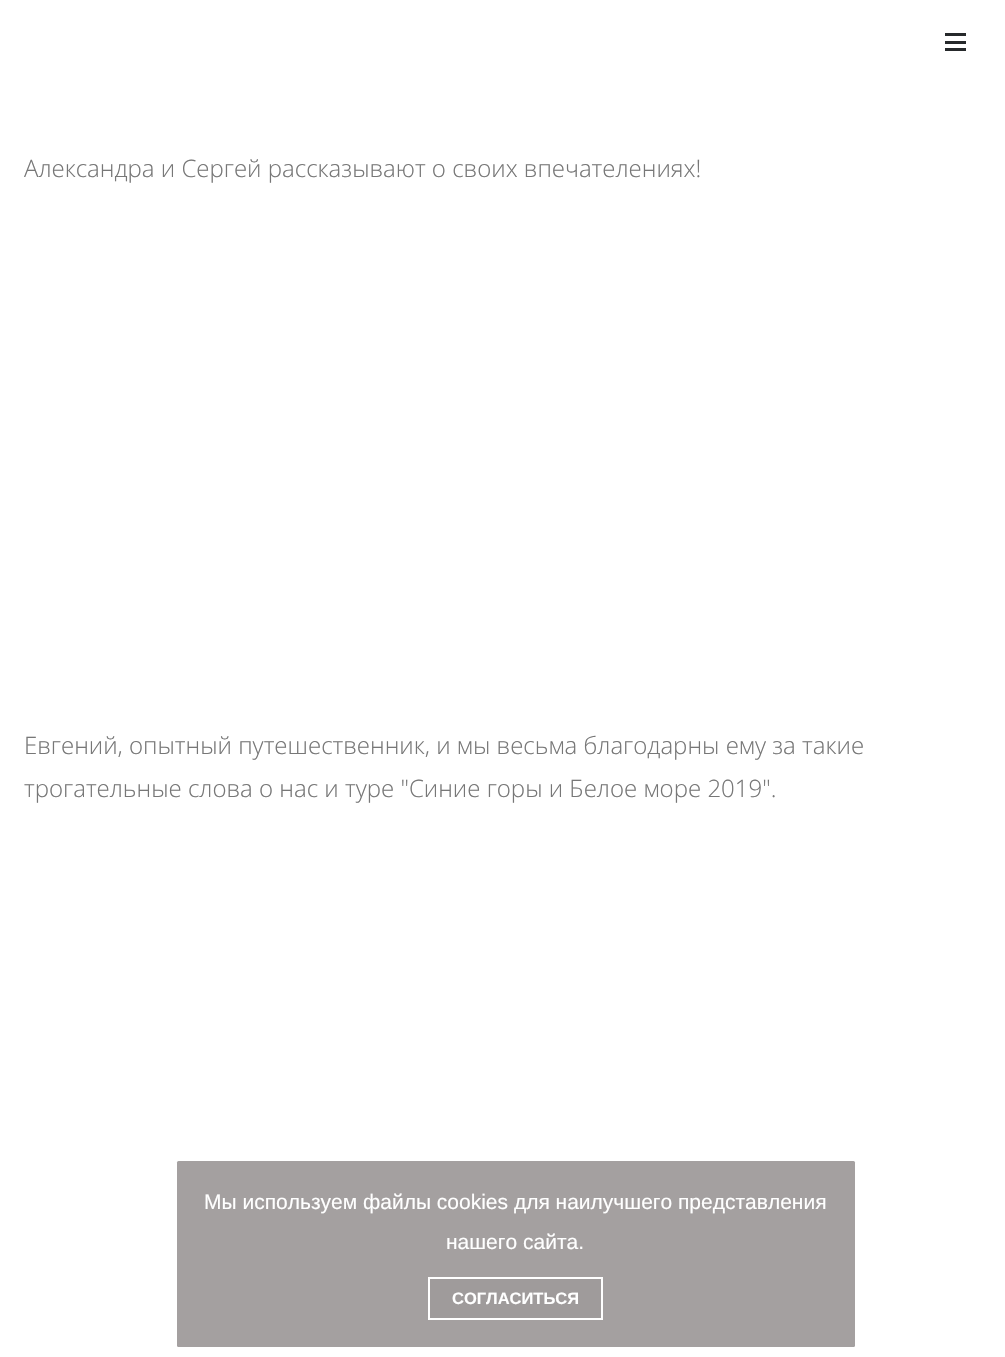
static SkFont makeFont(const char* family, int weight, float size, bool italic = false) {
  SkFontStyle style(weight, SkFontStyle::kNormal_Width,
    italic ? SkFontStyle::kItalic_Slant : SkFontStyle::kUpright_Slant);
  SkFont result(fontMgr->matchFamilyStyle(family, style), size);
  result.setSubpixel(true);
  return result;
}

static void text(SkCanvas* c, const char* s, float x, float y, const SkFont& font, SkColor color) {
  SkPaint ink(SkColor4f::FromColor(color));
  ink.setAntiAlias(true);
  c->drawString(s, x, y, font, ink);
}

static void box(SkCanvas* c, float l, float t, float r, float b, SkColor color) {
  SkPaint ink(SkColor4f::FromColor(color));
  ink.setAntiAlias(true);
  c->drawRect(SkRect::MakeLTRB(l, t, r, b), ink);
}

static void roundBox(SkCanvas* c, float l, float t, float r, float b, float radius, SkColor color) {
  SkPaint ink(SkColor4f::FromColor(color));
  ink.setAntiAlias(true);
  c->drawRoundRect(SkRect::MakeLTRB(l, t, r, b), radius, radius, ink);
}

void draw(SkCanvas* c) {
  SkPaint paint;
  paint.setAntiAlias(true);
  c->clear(0xffffffff);
  box(c, 945, 41, 966, 44, 0xff26292b);
  box(c, 945, 33, 966, 36, 0xff26292b);
  box(c, 945, 48, 966, 51, 0xff26292b);
  SkFont face1 = makeFont("Open Sans", 300, 24);
  text(c, "Александра и Сергей рассказывают о своих впечателениях!", 24, 177, face1, 0xff777777);
  text(c, "Евгений, опытный путешественник, и мы весьма благодарны ему за такие", 24, 754, face1, 0xff777777);
  text(c, "трогательные слова о нас и туре \"Синие горы и Белое море 2019\".", 24, 797, face1, 0xff777777);
  roundBox(c, 177, 1161, 855, 1347, 1.5f, 0xffa4a0a0);
  SkFont face2 = makeFont("Liberation Sans", 400, 21);
  text(c, "Мы используем файлы cookies для наилучшего представления", 204, 1209, face2, 0xffffffff);
  text(c, "нашего сайта.", 446, 1249, face2, 0xffffffff);
  paint.setColor(0xff9f9b9b);
  c->drawRect(SkRect::MakeLTRB(429, 1278, 602, 1319), paint);
  paint.setStyle(SkPaint::kStroke_Style);
  paint.setStrokeWidth(2);
  paint.setColor(0xffffffff);
  c->drawRect(SkRect::MakeLTRB(429, 1278, 602, 1319), paint);
  SkFont face3 = makeFont("Liberation Sans", 700, 16.5f);
  text(c, "СОГЛАСИТЬСЯ", 452, 1304, face3, 0xffffffff);
}
